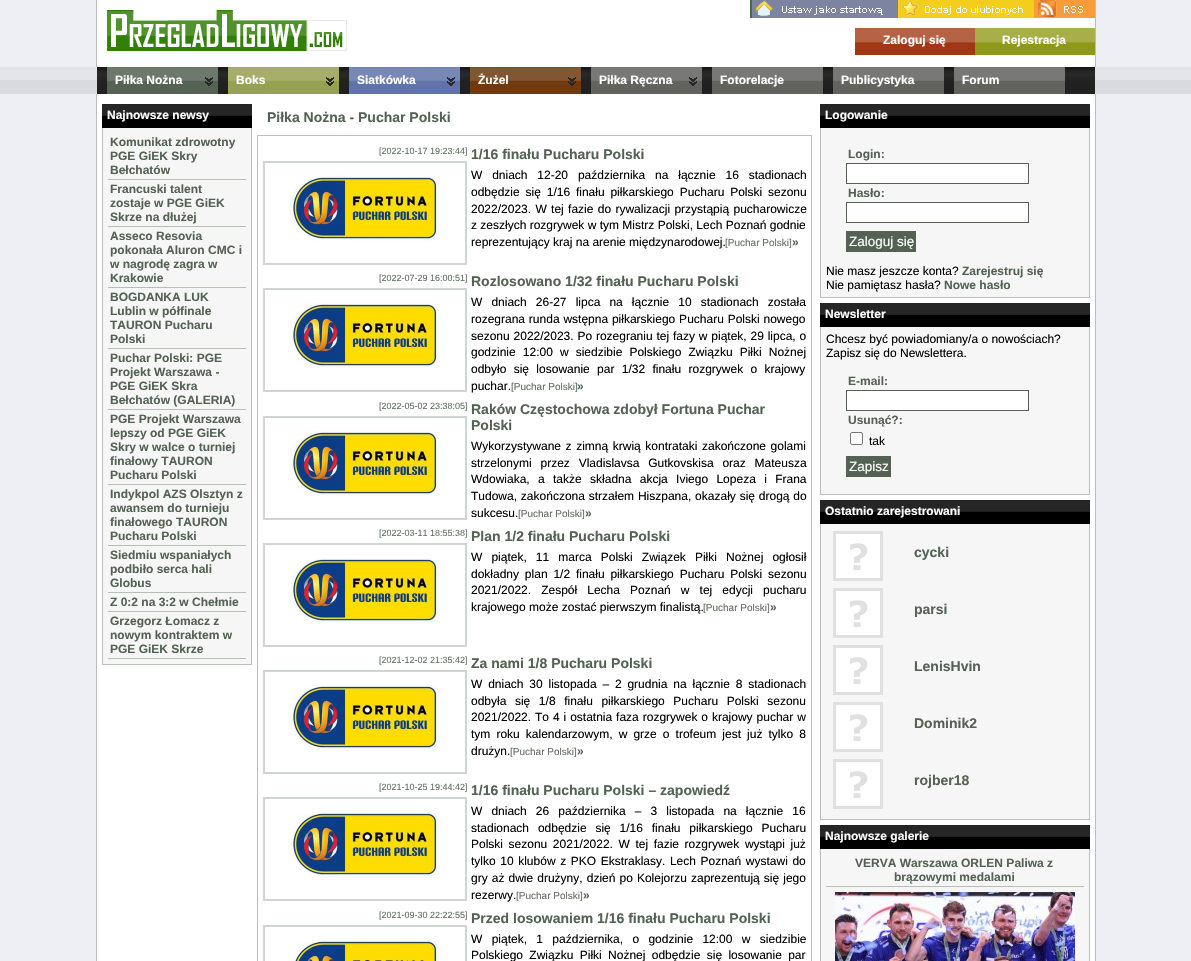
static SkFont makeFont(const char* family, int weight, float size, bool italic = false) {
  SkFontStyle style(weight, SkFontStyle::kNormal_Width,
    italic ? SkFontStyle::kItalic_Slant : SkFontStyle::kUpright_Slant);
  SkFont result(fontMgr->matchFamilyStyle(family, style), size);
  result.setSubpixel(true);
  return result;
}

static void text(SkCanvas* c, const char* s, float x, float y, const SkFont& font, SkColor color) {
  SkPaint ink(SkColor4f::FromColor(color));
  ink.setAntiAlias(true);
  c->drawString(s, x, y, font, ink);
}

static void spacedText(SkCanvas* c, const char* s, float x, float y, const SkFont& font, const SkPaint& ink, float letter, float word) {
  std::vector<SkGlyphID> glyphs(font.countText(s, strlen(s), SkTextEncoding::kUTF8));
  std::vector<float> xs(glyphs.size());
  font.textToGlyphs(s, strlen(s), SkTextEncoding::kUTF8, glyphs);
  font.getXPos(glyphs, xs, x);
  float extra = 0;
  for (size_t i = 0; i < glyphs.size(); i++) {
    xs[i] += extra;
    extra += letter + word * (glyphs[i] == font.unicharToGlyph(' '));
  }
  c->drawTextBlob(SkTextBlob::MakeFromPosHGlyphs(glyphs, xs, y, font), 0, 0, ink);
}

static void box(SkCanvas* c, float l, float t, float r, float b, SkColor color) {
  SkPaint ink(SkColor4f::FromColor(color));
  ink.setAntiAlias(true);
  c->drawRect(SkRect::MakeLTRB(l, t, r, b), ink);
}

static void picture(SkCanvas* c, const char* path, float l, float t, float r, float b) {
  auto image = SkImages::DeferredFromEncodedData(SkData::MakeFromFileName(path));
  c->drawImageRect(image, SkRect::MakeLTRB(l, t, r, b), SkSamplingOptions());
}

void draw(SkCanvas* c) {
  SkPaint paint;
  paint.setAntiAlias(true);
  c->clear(0xffeeeff4);
  picture(c, "img_01.png", 0, 67, 1191, 94);
  box(c, 97, 0, 1095, 67, 0xffffffff);
  box(c, 1095, 0, 1096, 67, 0xffbdbdbd);
  box(c, 96, 0, 97, 67, 0xffbdbdbd);
  picture(c, "img_02.png", 107, 10, 347, 51);
  picture(c, "img_03.png", 750, 0, 898, 18);
  picture(c, "img_04.png", 898, 0, 1034, 18);
  picture(c, "img_05.png", 1034, 0, 1095, 18);
  picture(c, "img_06.png", 855, 28, 975, 55);
  SkFont face1 = makeFont("Liberation Sans", 700, 12);
  text(c, "Zaloguj się", 883, 44, face1, 0xffffffff);
  picture(c, "img_07.png", 975, 28, 1095, 55);
  text(c, "Rejestracja", 1002, 44, face1, 0xffffffff);
  picture(c, "img_08.png", 97, 67, 1095, 94);
  picture(c, "img_09.png", 107, 67, 218, 94);
  picture(c, "img_10.png", 205, 77, 213, 86);
  text(c, "Piłka Nożna", 115, 84, face1, 0xffffffff);
  picture(c, "img_11.png", 228, 67, 339, 94);
  picture(c, "img_12.png", 326, 77, 334, 86);
  text(c, "Boks", 236, 84, face1, 0xffffffff);
  picture(c, "img_13.png", 349, 67, 460, 94);
  picture(c, "img_14.png", 447, 77, 455, 86);
  text(c, "Siatkówka", 357, 84, face1, 0xffffffff);
  picture(c, "img_15.png", 470, 67, 581, 94);
  picture(c, "img_16.png", 568, 77, 576, 86);
  text(c, "Żużel", 478, 84, face1, 0xffffffff);
  picture(c, "img_17.png", 591, 67, 702, 94);
  picture(c, "img_18.png", 689, 77, 697, 86);
  text(c, "Piłka Ręczna", 599, 84, face1, 0xffffffff);
  picture(c, "img_17.png", 712, 67, 823, 94);
  text(c, "Fotorelacje", 720, 84, face1, 0xffffffff);
  picture(c, "img_17.png", 833, 67, 944, 94);
  text(c, "Publicystyka", 841, 84, face1, 0xffffffff);
  picture(c, "img_17.png", 954, 67, 1065, 94);
  text(c, "Forum", 962, 84, face1, 0xffffffff);
  box(c, 96, 94, 1096, 99, 0xffffffff);
  box(c, 1095, 94, 1096, 961, 0xffbdbdbd);
  box(c, 96, 94, 97, 961, 0xffbdbdbd);
  box(c, 97, 99, 1095, 961, 0xffffffff);
  picture(c, "img_19.png", 102, 104, 252, 128);
  text(c, "Najnowsze newsy", 107, 119, face1, 0xffffffff);
  box(c, 103, 128, 251, 664, 0xfff6f6f6);
  box(c, 251, 128, 252, 665, 0xffbdbdbd);
  box(c, 102, 664, 252, 665, 0xffbdbdbd);
  box(c, 102, 128, 103, 665, 0xffbdbdbd);
  box(c, 108, 179, 246, 180, 0xffb5bfb5);
  text(c, "Komunikat zdrowotny", 110, 146, face1, 0xff536253);
  text(c, "PGE GiEK Skry", 110, 160, face1, 0xff536253);
  text(c, "Bełchatów", 110, 174, face1, 0xff536253);
  box(c, 108, 226, 246, 227, 0xffb5bfb5);
  text(c, "Francuski talent", 110, 193, face1, 0xff536253);
  text(c, "zostaje w PGE GiEK", 110, 207, face1, 0xff536253);
  text(c, "Skrze na dłużej", 110, 221, face1, 0xff536253);
  box(c, 108, 287, 246, 288, 0xffb5bfb5);
  text(c, "Asseco Resovia", 110, 240, face1, 0xff536253);
  text(c, "pokonała Aluron CMC i", 110, 254, face1, 0xff536253);
  text(c, "w nagrodę zagra w", 110, 268, face1, 0xff536253);
  text(c, "Krakowie", 110, 282, face1, 0xff536253);
  box(c, 108, 348, 246, 349, 0xffb5bfb5);
  text(c, "BOGDANKA LUK", 110, 301, face1, 0xff536253);
  text(c, "Lublin w półfinale", 110, 315, face1, 0xff536253);
  text(c, "TAURON Pucharu", 110, 329, face1, 0xff536253);
  text(c, "Polski", 110, 343, face1, 0xff536253);
  box(c, 108, 409, 246, 410, 0xffb5bfb5);
  text(c, "Puchar Polski: PGE", 110, 362, face1, 0xff536253);
  text(c, "Projekt Warszawa -", 110, 376, face1, 0xff536253);
  text(c, "PGE GiEK Skra", 110, 390, face1, 0xff536253);
  text(c, "Bełchatów (GALERIA)", 110, 404, face1, 0xff536253);
  box(c, 108, 484, 246, 485, 0xffb5bfb5);
  text(c, "PGE Projekt Warszawa", 110, 423, face1, 0xff536253);
  text(c, "lepszy od PGE GiEK", 110, 437, face1, 0xff536253);
  text(c, "Skry w walce o turniej", 110, 451, face1, 0xff536253);
  text(c, "finałowy TAURON", 110, 465, face1, 0xff536253);
  text(c, "Pucharu Polski", 110, 479, face1, 0xff536253);
  box(c, 108, 545, 246, 546, 0xffb5bfb5);
  text(c, "Indykpol AZS Olsztyn z", 110, 498, face1, 0xff536253);
  text(c, "awansem do turnieju", 110, 512, face1, 0xff536253);
  text(c, "finałowego TAURON", 110, 526, face1, 0xff536253);
  text(c, "Pucharu Polski", 110, 540, face1, 0xff536253);
  box(c, 108, 592, 246, 593, 0xffb5bfb5);
  text(c, "Siedmiu wspaniałych", 110, 559, face1, 0xff536253);
  text(c, "podbiło serca hali", 110, 573, face1, 0xff536253);
  text(c, "Globus", 110, 587, face1, 0xff536253);
  box(c, 108, 611, 246, 612, 0xffb5bfb5);
  text(c, "Z 0:2 na 3:2 w Chełmie", 110, 606, face1, 0xff536253);
  box(c, 108, 658, 246, 659, 0xffb5bfb5);
  text(c, "Grzegorz Łomacz z", 110, 625, face1, 0xff536253);
  text(c, "nowym kontraktem w", 110, 639, face1, 0xff536253);
  text(c, "PGE GiEK Skrze", 110, 653, face1, 0xff536253);
  SkFont face2 = makeFont("Liberation Sans", 700, 14);
  text(c, "Piłka Nożna - Puchar Polski", 267, 122, face2, 0xff536253);
  paint.setStyle(SkPaint::kStroke_Style);
  paint.setStrokeWidth(1);
  paint.setColor(0xffbdbdbd);
  c->drawRect(SkRect::MakeLTRB(257.5f, 135.5f, 811.5f, 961.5f), paint);
  SkFont face3 = makeFont("Liberation Sans", 400, 9);
  text(c, "[2022-10-17 19:23:44]", 379, 154, face3, 0xff616f61);
  text(c, "1/16 finału Pucharu Polski", 471, 159, face2, 0xff536253);
  paint.setStrokeWidth(2);
  paint.setColor(0xffd1d5d1);
  c->drawRect(SkRect::MakeLTRB(264, 162, 466, 264), paint);
  picture(c, "img_20.png", 291, 176, 438, 241);
  SkFont face4 = makeFont("Liberation Sans", 400, 12);
  paint.setStyle(SkPaint::kFill_Style);
  paint.setColor(0xff000000);
  spacedText(c, "W dniach 12-20 października na łącznie 16 stadionach", 471, 179, face4, paint, 0, 6.5f);
  spacedText(c, "odbędzie się 1/16 finału piłkarskiego Pucharu Polski sezonu", 471, 196, face4, paint, 0, 2.5f);
  spacedText(c, "2022/2023. W tej fazie do rywalizacji przystąpią pucharowicze", 471, 213, face4, paint, 0, 1);
  text(c, "z zeszłych rozgrywek w tym Mistrz Polski, Lech Poznań godnie", 471, 229, face4, 0xff000000);
  text(c, "reprezentujący kraj na arenie międzynarodowej.", 471, 246, face4, 0xff000000);
  SkFont face5 = makeFont("Liberation Sans", 400, 10);
  text(c, "[Puchar Polski]", 725, 246, face5, 0xff616f61);
  text(c, "»", 792, 246, face1, 0xff536253);
  text(c, "[2022-07-29 16:00:51]", 379, 281, face3, 0xff616f61);
  text(c, "Rozlosowano 1/32 finału Pucharu Polski", 471, 286, face2, 0xff536253);
  paint.setStyle(SkPaint::kStroke_Style);
  paint.setColor(0xffd1d5d1);
  c->drawRect(SkRect::MakeLTRB(264, 289, 466, 391), paint);
  picture(c, "img_20.png", 291, 303, 438, 368);
  paint.setStyle(SkPaint::kFill_Style);
  paint.setColor(0xff000000);
  spacedText(c, "W dniach 26-27 lipca na łącznie 10 stadionach została", 471, 306, face4, paint, 0, 5.75f);
  spacedText(c, "rozegrana runda wstępna piłkarskiego Pucharu Polski nowego", 471, 323, face4, paint, 0, 0.5f);
  spacedText(c, "sezonu 2022/2023. Po rozegraniu tej fazy w piątek, 29 lipca, o", 471, 340, face4, paint, 0, 0.5f);
  spacedText(c, "godzinie 12:00 w siedzibie Polskiego Związku Piłki Nożnej", 471, 356, face4, paint, 0, 3.75f);
  spacedText(c, "odbyło się losowanie par 1/32 finału rozgrywek o krajowy", 471, 373, face4, paint, 0, 4);
  text(c, "puchar.", 471, 390, face4, 0xff000000);
  text(c, "[Puchar Polski]", 511, 390, face5, 0xff616f61);
  text(c, "»", 577, 390, face1, 0xff536253);
  text(c, "[2022-05-02 23:38:05]", 379, 409, face3, 0xff616f61);
  text(c, "Raków Częstochowa zdobył Fortuna Puchar", 471, 414, face2, 0xff536253);
  text(c, "Polski", 471, 430, face2, 0xff536253);
  paint.setStyle(SkPaint::kStroke_Style);
  paint.setColor(0xffd1d5d1);
  c->drawRect(SkRect::MakeLTRB(264, 417, 466, 519), paint);
  picture(c, "img_20.png", 291, 431, 438, 496);
  paint.setStyle(SkPaint::kFill_Style);
  paint.setColor(0xff000000);
  spacedText(c, "Wykorzystywane z zimną krwią kontrataki zakończone golami", 471, 450, face4, paint, 0, 1.25f);
  spacedText(c, "strzelonymi przez Vladislavsa Gutkovskisa oraz Mateusza", 471, 467, face4, paint, 0, 5.5f);
  spacedText(c, "Wdowiaka, a także składna akcja Iviego Lopeza i Frana", 471, 483, face4, paint, 0, 5);
  spacedText(c, "Tudowa, zakończona strzałem Hiszpana, okazały się drogą do", 471, 500, face4, paint, 0, 0.5f);
  text(c, "sukcesu.", 471, 517, face4, 0xff000000);
  text(c, "[Puchar Polski]", 518, 517, face5, 0xff616f61);
  text(c, "»", 585, 517, face1, 0xff536253);
  text(c, "[2022-03-11 18:55:38]", 379, 536, face3, 0xff616f61);
  text(c, "Plan 1/2 finału Pucharu Polski", 471, 541, face2, 0xff536253);
  paint.setStyle(SkPaint::kStroke_Style);
  paint.setColor(0xffd1d5d1);
  c->drawRect(SkRect::MakeLTRB(264, 544, 466, 646), paint);
  picture(c, "img_20.png", 291, 558, 438, 623);
  paint.setStyle(SkPaint::kFill_Style);
  paint.setColor(0xff000000);
  spacedText(c, "W piątek, 11 marca Polski Związek Piłki Nożnej ogłosił", 471, 561, face4, paint, 0, 5.75f);
  spacedText(c, "dokładny plan 1/2 finału piłkarskiego Pucharu Polski sezonu", 471, 578, face4, paint, 0, 2.5f);
  spacedText(c, "2021/2022. Zespół Lecha Poznań w tej edycji pucharu", 471, 594, face4, paint, 0, 6.75f);
  text(c, "krajowego może zostać pierwszym finalistą.", 471, 611, face4, 0xff000000);
  text(c, "[Puchar Polski]", 703, 611, face5, 0xff616f61);
  text(c, "»", 770, 611, face1, 0xff536253);
  text(c, "[2021-12-02 21:35:42]", 379, 663, face3, 0xff616f61);
  text(c, "Za nami 1/8 Pucharu Polski", 471, 668, face2, 0xff536253);
  paint.setStyle(SkPaint::kStroke_Style);
  paint.setColor(0xffd1d5d1);
  c->drawRect(SkRect::MakeLTRB(264, 671, 466, 773), paint);
  picture(c, "img_20.png", 291, 685, 438, 750);
  paint.setStyle(SkPaint::kFill_Style);
  paint.setColor(0xff000000);
  spacedText(c, "W dniach 30 listopada – 2 grudnia na łącznie 8 stadionach", 471, 688, face4, paint, 0, 2.5f);
  spacedText(c, "odbyła się 1/8 finału piłkarskiego Pucharu Polski sezonu", 471, 705, face4, paint, 0, 5.25f);
  spacedText(c, "2021/2022. To 4 i ostatnia faza rozgrywek o krajowy puchar w", 471, 721, face4, paint, 0, 0.6f);
  spacedText(c, "tym roku kalendarzowym, w grze o trofeum jest już tylko 8", 471, 738, face4, paint, 0, 2.75f);
  text(c, "drużyn.", 471, 755, face4, 0xff000000);
  text(c, "[Puchar Polski]", 510, 755, face5, 0xff616f61);
  text(c, "»", 577, 755, face1, 0xff536253);
  text(c, "[2021-10-25 19:44:42]", 379, 790, face3, 0xff616f61);
  text(c, "1/16 finału Pucharu Polski – zapowiedź", 471, 795, face2, 0xff536253);
  paint.setStyle(SkPaint::kStroke_Style);
  paint.setColor(0xffd1d5d1);
  c->drawRect(SkRect::MakeLTRB(264, 798, 466, 900), paint);
  picture(c, "img_20.png", 291, 812, 438, 877);
  paint.setStyle(SkPaint::kFill_Style);
  paint.setColor(0xff000000);
  spacedText(c, "W dniach 26 października – 3 listopada na łącznie 16", 471, 815, face4, paint, 0, 5.75f);
  spacedText(c, "stadionach odbędzie się 1/16 finału piłkarskiego Pucharu", 471, 832, face4, paint, 0, 5.5f);
  spacedText(c, "Polski sezonu 2021/2022. W tej fazie rozgrywek wystąpi już", 471, 848, face4, paint, 0, 2.25f);
  spacedText(c, "tylko 10 klubów z PKO Ekstraklasy. Lech Poznań wystawi do", 471, 865, face4, paint, 0, 1.25f);
  spacedText(c, "gry aż dwie drużyny, dzień po Kolejorzu zaprezentują się jego", 471, 882, face4, paint, 0, 0.75f);
  text(c, "rezerwy.", 471, 899, face4, 0xff000000);
  text(c, "[Puchar Polski]", 516, 899, face5, 0xff616f61);
  text(c, "»", 583, 899, face1, 0xff536253);
  text(c, "[2021-09-30 22:22:55]", 379, 918, face3, 0xff616f61);
  text(c, "Przed losowaniem 1/16 finału Pucharu Polski", 471, 923, face2, 0xff536253);
  paint.setStyle(SkPaint::kStroke_Style);
  paint.setColor(0xffd1d5d1);
  c->drawRect(SkRect::MakeLTRB(264, 926, 466, 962), paint);
  picture(c, "img_21.png", 293, 940, 438, 961);
  paint.setStyle(SkPaint::kFill_Style);
  paint.setColor(0xff000000);
  spacedText(c, "W piątek, 1 października, o godzinie 12:00 w siedzibie", 471, 943, face4, paint, 0, 6);
  spacedText(c, "Polskiego Związku Piłki Nożnej odbędzie się losowanie par", 471, 959, face4, paint, 0, 3);
  picture(c, "img_22.png", 820, 104, 1090, 128);
  text(c, "Logowanie", 825, 119, face1, 0xffffffff);
  box(c, 821, 128, 1089, 297, 0xfff6f6f6);
  box(c, 1089, 128, 1090, 298, 0xffbdbdbd);
  box(c, 820, 297, 1090, 298, 0xffbdbdbd);
  box(c, 820, 128, 821, 298, 0xffbdbdbd);
  text(c, "Login:", 848, 158, face1, 0xff536253);
  paint.setColor(0xffffffff);
  c->drawRect(SkRect::MakeLTRB(846.5f, 163.5f, 1028.5f, 183.5f), paint);
  paint.setStyle(SkPaint::kStroke_Style);
  paint.setStrokeWidth(1);
  paint.setColor(0xff536253);
  c->drawRect(SkRect::MakeLTRB(846.5f, 163.5f, 1028.5f, 183.5f), paint);
  text(c, "Hasło:", 848, 197, face1, 0xff536253);
  paint.setStyle(SkPaint::kFill_Style);
  paint.setColor(0xffffffff);
  c->drawRect(SkRect::MakeLTRB(846.5f, 202.5f, 1028.5f, 222.5f), paint);
  paint.setStyle(SkPaint::kStroke_Style);
  paint.setColor(0xff536253);
  c->drawRect(SkRect::MakeLTRB(846.5f, 202.5f, 1028.5f, 222.5f), paint);
  box(c, 846, 231, 916, 252, 0xff536253);
  SkFont face6 = makeFont("Liberation Sans", 400, 13.5f);
  text(c, "Zaloguj się", 849, 246, face6, 0xffffffff);
  text(c, "Nie masz jeszcze konta?", 826, 275, face4, 0xff000000);
  text(c, "Zarejestruj się", 962, 275, face1, 0xff536253);
  text(c, "Nie pamiętasz hasła?", 826, 289, face4, 0xff000000);
  text(c, "Nowe hasło", 944, 289, face1, 0xff536253);
  picture(c, "img_22.png", 820, 303, 1090, 327);
  text(c, "Newsletter", 825, 318, face1, 0xffffffff);
  box(c, 821, 327, 1089, 494, 0xfff6f6f6);
  box(c, 1089, 327, 1090, 495, 0xffbdbdbd);
  box(c, 820, 494, 1090, 495, 0xffbdbdbd);
  box(c, 820, 327, 821, 495, 0xffbdbdbd);
  text(c, "Chcesz być powiadomiany/a o nowościach?", 826, 343, face4, 0xff000000);
  text(c, "Zapisz się do Newslettera.", 826, 357, face4, 0xff000000);
  text(c, "E-mail:", 848, 385, face1, 0xff536253);
  paint.setStyle(SkPaint::kFill_Style);
  paint.setColor(0xffffffff);
  c->drawRect(SkRect::MakeLTRB(846.5f, 390.5f, 1028.5f, 410.5f), paint);
  paint.setStyle(SkPaint::kStroke_Style);
  paint.setColor(0xff536253);
  c->drawRect(SkRect::MakeLTRB(846.5f, 390.5f, 1028.5f, 410.5f), paint);
  text(c, "Usunąć?:", 848, 424, face1, 0xff536253);
  paint.setStyle(SkPaint::kFill_Style);
  paint.setColor(0xffffffff);
  c->drawRoundRect(SkRect::MakeLTRB(850.5f, 432.5f, 862.5f, 444.5f), 1.5f, 1.5f, paint);
  paint.setStyle(SkPaint::kStroke_Style);
  paint.setColor(0xff767676);
  c->drawRoundRect(SkRect::MakeLTRB(850.5f, 432.5f, 862.5f, 444.5f), 1.5f, 1.5f, paint);
  text(c, "tak", 869, 445, face4, 0xff000000);
  box(c, 846, 456, 891, 477, 0xff536253);
  text(c, "Zapisz", 849, 471, face6, 0xffffffff);
  picture(c, "img_22.png", 820, 500, 1090, 524);
  text(c, "Ostatnio zarejestrowani", 825, 515, face1, 0xffffffff);
  box(c, 821, 524, 1089, 819, 0xfff6f6f6);
  box(c, 1089, 524, 1090, 820, 0xffbdbdbd);
  box(c, 820, 819, 1090, 820, 0xffbdbdbd);
  box(c, 820, 524, 821, 820, 0xffbdbdbd);
  picture(c, "img_23.png", 833, 531, 883, 581);
  text(c, "cycki", 914, 557, face2, 0xff536253);
  picture(c, "img_23.png", 833, 588, 883, 638);
  text(c, "parsi", 914, 614, face2, 0xff536253);
  picture(c, "img_23.png", 833, 645, 883, 695);
  text(c, "LenisHvin", 914, 671, face2, 0xff536253);
  picture(c, "img_23.png", 833, 702, 883, 752);
  text(c, "Dominik2", 914, 728, face2, 0xff536253);
  picture(c, "img_23.png", 833, 759, 883, 809);
  text(c, "rojber18", 914, 785, face2, 0xff536253);
  picture(c, "img_22.png", 820, 825, 1090, 849);
  text(c, "Najnowsze galerie", 825, 840, face1, 0xffffffff);
  box(c, 821, 849, 1089, 961, 0xfff6f6f6);
  box(c, 1089, 849, 1090, 961, 0xffbdbdbd);
  box(c, 820, 849, 821, 961, 0xffbdbdbd);
  box(c, 826, 886, 1084, 887, 0xffb5bfb5);
  text(c, "VERVA Warszawa ORLEN Paliwa z", 855, 867, face1, 0xff536253);
  text(c, "brązowymi medalami", 894, 881, face1, 0xff536253);
  picture(c, "img_24.png", 835, 892, 1075, 961);
}
